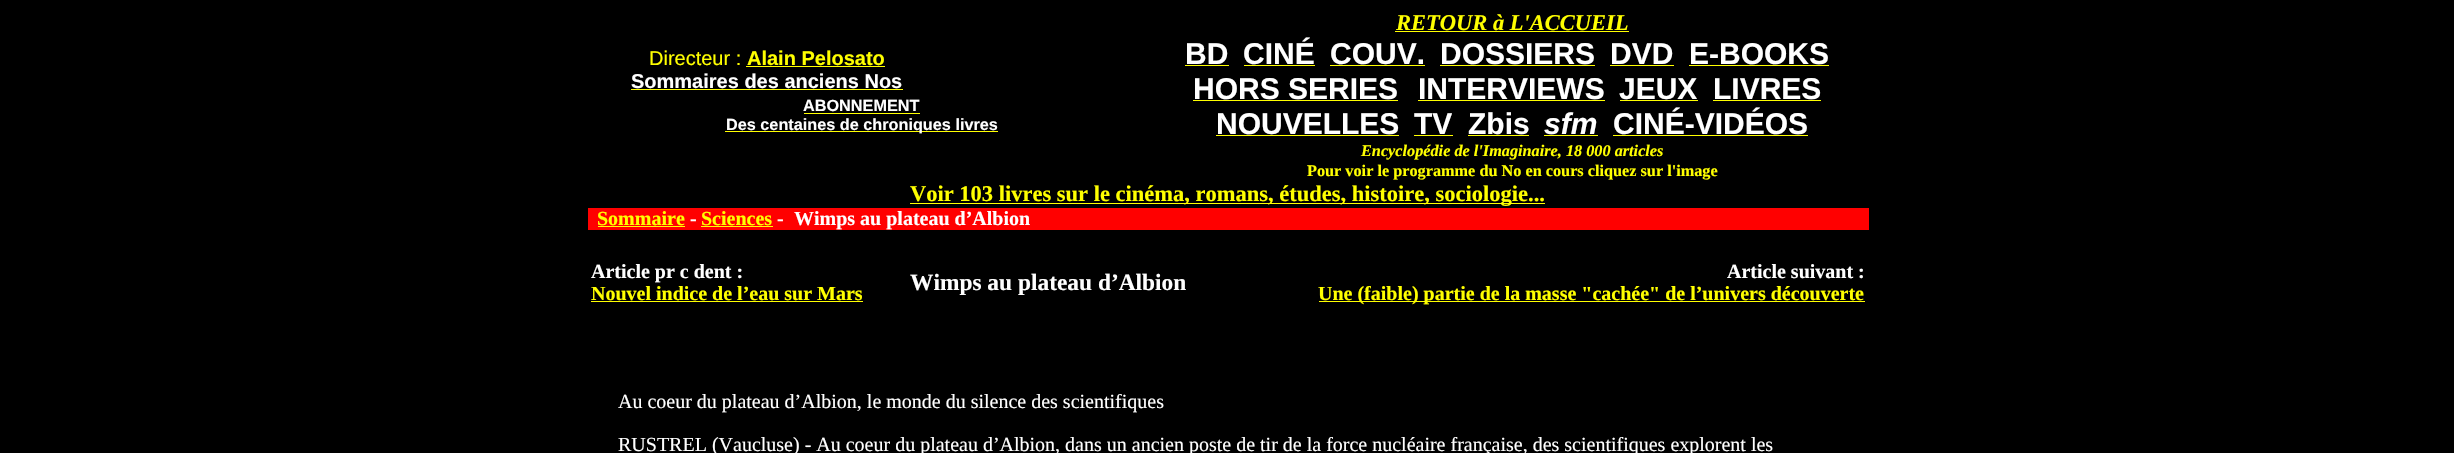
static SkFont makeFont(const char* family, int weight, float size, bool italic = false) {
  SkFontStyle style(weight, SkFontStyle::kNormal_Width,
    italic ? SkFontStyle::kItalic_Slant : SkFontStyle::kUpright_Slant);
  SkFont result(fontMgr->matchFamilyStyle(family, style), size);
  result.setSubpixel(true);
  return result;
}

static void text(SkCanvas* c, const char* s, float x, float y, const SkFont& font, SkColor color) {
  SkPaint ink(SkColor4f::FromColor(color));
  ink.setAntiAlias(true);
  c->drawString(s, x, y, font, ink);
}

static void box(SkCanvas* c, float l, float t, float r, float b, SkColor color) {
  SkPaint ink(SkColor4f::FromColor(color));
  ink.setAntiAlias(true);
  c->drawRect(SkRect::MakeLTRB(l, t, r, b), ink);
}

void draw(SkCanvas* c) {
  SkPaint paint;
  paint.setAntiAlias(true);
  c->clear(0xff000000);
  SkFont face1 = makeFont("Liberation Sans", 400, 20);
  text(c, "Directeur :", 649, 65, face1, 0xffffff00);
  SkFont face2 = makeFont("Liberation Sans", 700, 20);
  text(c, "Alain Pelosato", 747, 65, face2, 0xffffff00);
  box(c, 746, 66, 885, 67, 0xffffff00);
  text(c, "Sommaires des anciens Nos", 631, 88, face2, 0xffffffff);
  box(c, 631, 89, 903, 90, 0xffffff00);
  SkFont face3 = makeFont("Liberation Sans", 700, 16.25f);
  text(c, "ABONNEMENT", 803, 111, face3, 0xffffffff);
  box(c, 804, 113, 920, 114, 0xffffff00);
  box(c, 725, 131, 998, 132, 0xffffff00);
  text(c, "Des centaines de chroniques livres", 726, 130, face3, 0xffffffff);
  SkFont face4 = makeFont("Liberation Serif", 700, 22.5f, true);
  text(c, "RETOUR à L'ACCUEIL", 1396, 30, face4, 0xffffff00);
  box(c, 1395, 31, 1629, 32, 0xffffff00);
  SkFont face5 = makeFont("Liberation Sans", 700, 30);
  text(c, "BD", 1185, 64, face5, 0xffffffff);
  box(c, 1185, 65, 1229, 66, 0xffffff00);
  text(c, "CINÉ", 1243, 64, face5, 0xffffffff);
  box(c, 1244, 65, 1315, 66, 0xffffff00);
  text(c, "COUV.", 1330, 64, face5, 0xffffffff);
  box(c, 1330, 65, 1425, 66, 0xffffff00);
  text(c, "DOSSIERS", 1440, 64, face5, 0xffffffff);
  box(c, 1440, 65, 1595, 66, 0xffffff00);
  text(c, "DVD", 1610, 64, face5, 0xffffffff);
  box(c, 1610, 65, 1674, 66, 0xffffff00);
  text(c, "E-BOOKS", 1689, 64, face5, 0xffffffff);
  box(c, 1689, 65, 1829, 66, 0xffffff00);
  text(c, "HORS SERIES", 1193, 99, face5, 0xffffffff);
  box(c, 1193, 100, 1398, 101, 0xffffff00);
  text(c, "INTERVIEWS", 1418, 99, face5, 0xffffffff);
  box(c, 1418, 100, 1605, 101, 0xffffff00);
  text(c, "JEUX", 1619, 99, face5, 0xffffffff);
  box(c, 1620, 100, 1698, 101, 0xffffff00);
  text(c, "LIVRES", 1713, 99, face5, 0xffffffff);
  box(c, 1713, 100, 1821, 101, 0xffffff00);
  text(c, "NOUVELLES", 1216, 134, face5, 0xffffffff);
  box(c, 1216, 135, 1399, 136, 0xffffff00);
  text(c, "TV", 1414, 134, face5, 0xffffffff);
  box(c, 1414, 135, 1453, 136, 0xffffff00);
  text(c, "Zbis", 1468, 134, face5, 0xffffffff);
  box(c, 1468, 135, 1529, 136, 0xffffff00);
  SkFont face6 = makeFont("Liberation Sans", 700, 30, true);
  text(c, "sfm", 1544, 134, face6, 0xffffffff);
  box(c, 1544, 135, 1598, 136, 0xffffff00);
  text(c, "CINÉ-VIDÉOS", 1613, 134, face5, 0xffffffff);
  box(c, 1613, 135, 1808, 136, 0xffffff00);
  SkFont face7 = makeFont("Liberation Serif", 700, 16.25f, true);
  text(c, "Encyclopédie de l'Imaginaire, 18 000 articles", 1361, 156, face7, 0xffffff00);
  SkFont face8 = makeFont("Liberation Serif", 700, 16.25f);
  text(c, "Pour voir le programme du No en cours cliquez sur l'image", 1307, 176, face8, 0xffffff00);
  box(c, 910, 203, 1545, 204, 0xffffff00);
  SkFont face9 = makeFont("Liberation Serif", 700, 22.5f);
  text(c, "Voir 103 livres sur le cinéma, romans, études, histoire, sociologie...", 910, 201, face9, 0xffffff00);
  box(c, 588, 208, 1869, 230, 0xffff0000);
  SkFont face10 = makeFont("Liberation Serif", 700, 20);
  text(c, "Sommaire", 597, 225, face10, 0xffffff00);
  box(c, 598, 226, 685, 227, 0xffffff00);
  text(c, "-", 690, 225, face10, 0xffffffff);
  text(c, "Sciences", 701, 225, face10, 0xffffff00);
  box(c, 701, 226, 773, 227, 0xffffff00);
  text(c, "-", 777, 225, face10, 0xffffffff);
  text(c, "Wimps au plateau d’Albion", 794, 225, face10, 0xffffffff);
  text(c, "Article pr c dent :", 591, 278, face10, 0xffffffff);
  text(c, "Nouvel indice de l’eau sur Mars", 591, 300, face10, 0xffffff00);
  box(c, 591, 301, 863, 302, 0xffffff00);
  SkFont face11 = makeFont("Liberation Serif", 700, 23.4f);
  text(c, "Wimps au plateau d’Albion", 910, 290, face11, 0xffffffff);
  text(c, "Article suivant :", 1727, 278, face10, 0xffffffff);
  box(c, 1319, 301, 1865, 302, 0xffffff00);
  text(c, "Une (faible) partie de la masse \"cachée\" de l’univers découverte", 1318, 300, face10, 0xffffff00);
  SkFont face12 = makeFont("Liberation Serif", 400, 20);
  text(c, "Au coeur du plateau d’Albion, le monde du silence des scientifiques", 618, 408, face12, 0xffffffff);
  text(c, "RUSTREL (Vaucluse) - Au coeur du plateau d’Albion, dans un ancien poste de tir de la force nucléaire française, des scientifiques explorent les", 618, 451, face12, 0xffffffff);
}
